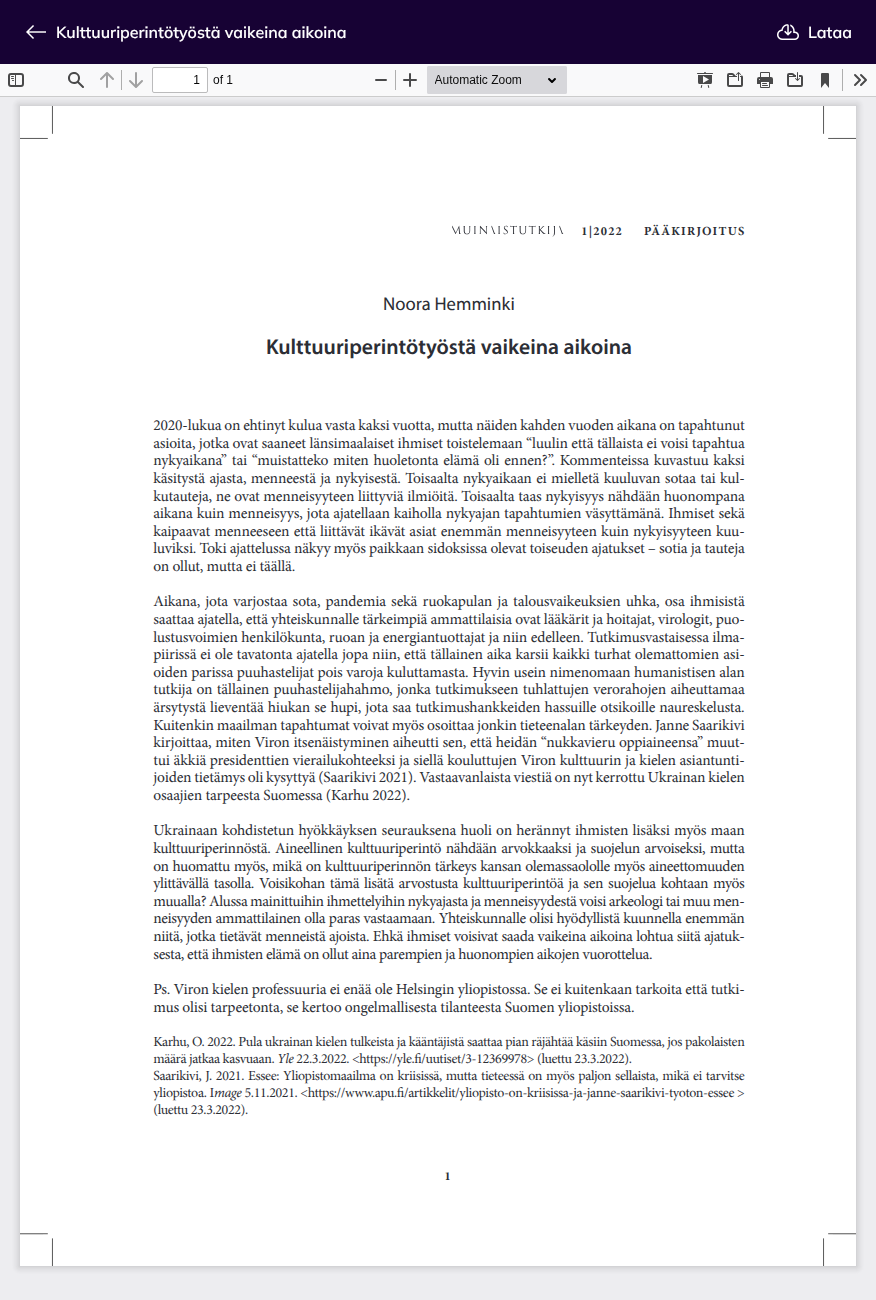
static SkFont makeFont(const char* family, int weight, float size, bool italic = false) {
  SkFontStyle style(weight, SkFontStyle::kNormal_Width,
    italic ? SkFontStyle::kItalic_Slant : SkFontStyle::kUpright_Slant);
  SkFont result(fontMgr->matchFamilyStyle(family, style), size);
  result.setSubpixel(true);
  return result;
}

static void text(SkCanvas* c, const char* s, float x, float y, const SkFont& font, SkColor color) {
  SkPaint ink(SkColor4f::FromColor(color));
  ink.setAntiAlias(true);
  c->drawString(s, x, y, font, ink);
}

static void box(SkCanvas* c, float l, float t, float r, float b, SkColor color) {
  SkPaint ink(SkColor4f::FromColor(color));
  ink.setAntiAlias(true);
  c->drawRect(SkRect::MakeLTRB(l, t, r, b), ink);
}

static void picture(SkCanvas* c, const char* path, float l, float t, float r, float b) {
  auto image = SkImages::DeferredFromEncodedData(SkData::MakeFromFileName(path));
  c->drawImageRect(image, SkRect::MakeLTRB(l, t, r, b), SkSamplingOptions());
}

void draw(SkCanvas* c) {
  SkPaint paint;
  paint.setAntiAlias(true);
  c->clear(0xffffffff);
  box(c, 0, 0, 876, 64, 0xff170234);
  picture(c, "img_01.png", 26, 25, 46, 39);
  SkFont face1 = makeFont("Mulish", 600, 16);
  text(c, "Kulttuuriperintötyöstä vaikeina aikoina", 56, 38, face1, 0xffffffff);
  picture(c, "img_02.png", 777, 24, 799, 40);
  text(c, "Lataa", 808, 38, face1, 0xffffffff);
  picture(c, "img_03.png", 0, 64, 876, 1300);
}
